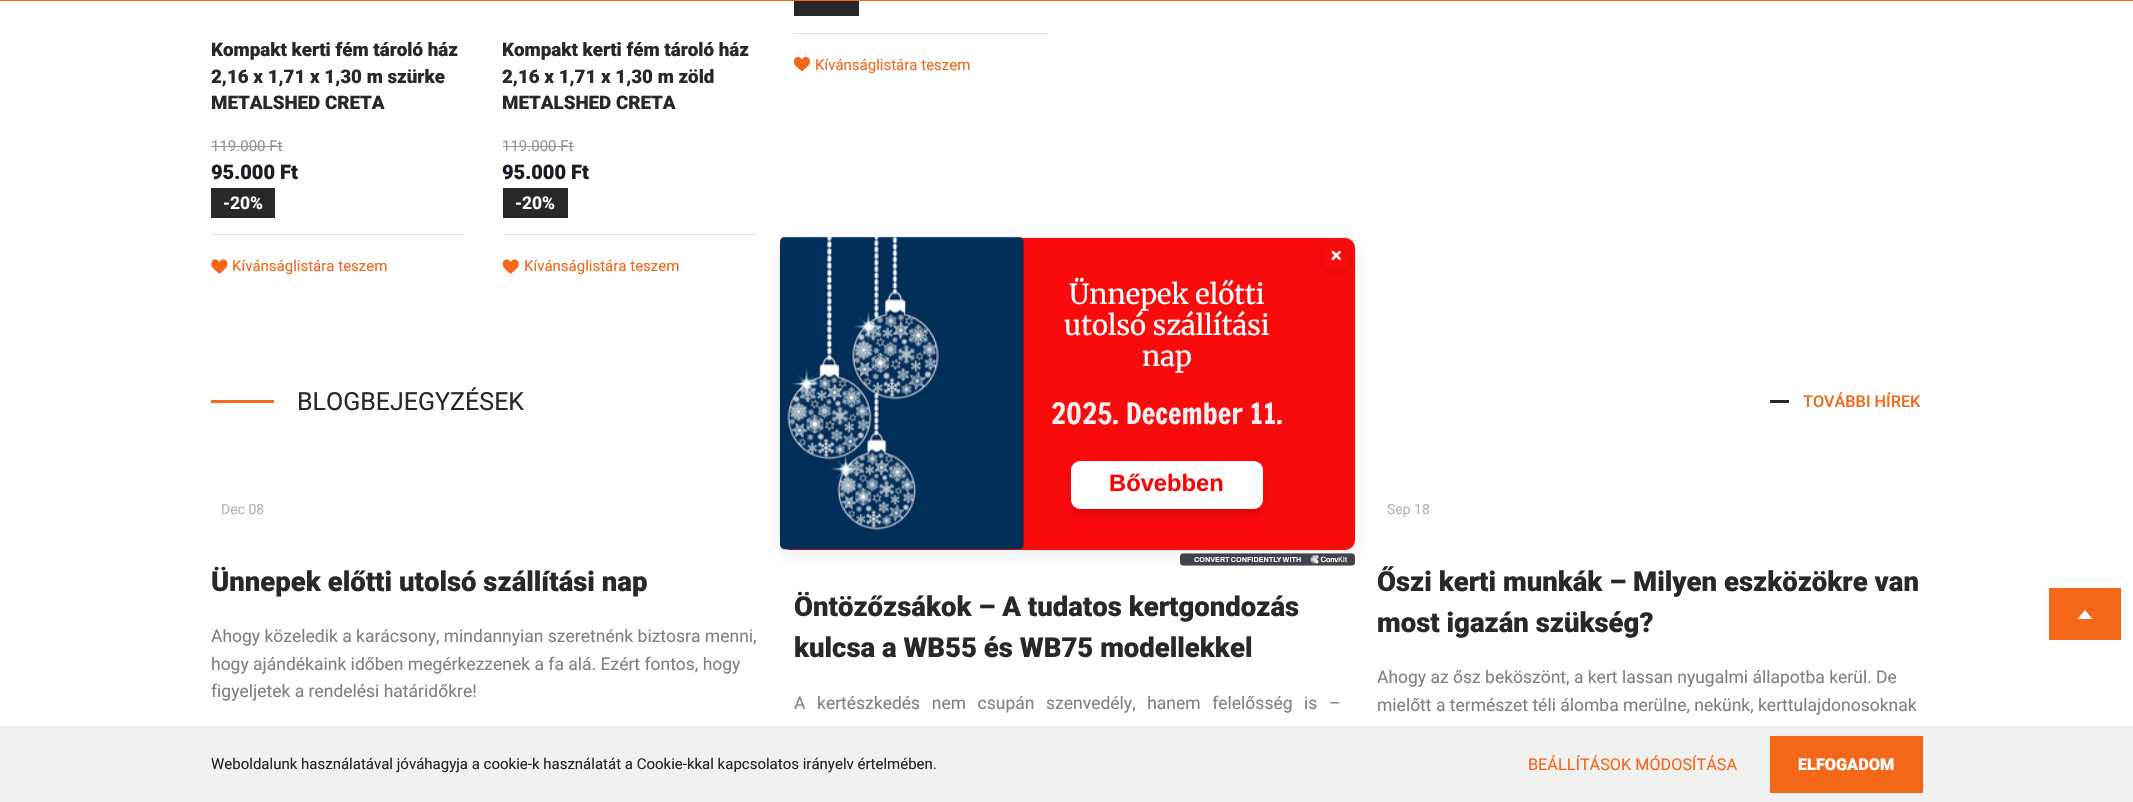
static SkFont makeFont(const char* family, int weight, float size, bool italic = false) {
  SkFontStyle style(weight, SkFontStyle::kNormal_Width,
    italic ? SkFontStyle::kItalic_Slant : SkFontStyle::kUpright_Slant);
  SkFont result(fontMgr->matchFamilyStyle(family, style), size);
  result.setSubpixel(true);
  return result;
}

static void text(SkCanvas* c, const char* s, float x, float y, const SkFont& font, SkColor color) {
  SkPaint ink(SkColor4f::FromColor(color));
  ink.setAntiAlias(true);
  c->drawString(s, x, y, font, ink);
}

static void spacedText(SkCanvas* c, const char* s, float x, float y, const SkFont& font, const SkPaint& ink, float letter, float word) {
  std::vector<SkGlyphID> glyphs(font.countText(s, strlen(s), SkTextEncoding::kUTF8));
  std::vector<float> xs(glyphs.size());
  font.textToGlyphs(s, strlen(s), SkTextEncoding::kUTF8, glyphs);
  font.getXPos(glyphs, xs, x);
  float extra = 0;
  for (size_t i = 0; i < glyphs.size(); i++) {
    xs[i] += extra;
    extra += letter + word * (glyphs[i] == font.unicharToGlyph(' '));
  }
  c->drawTextBlob(SkTextBlob::MakeFromPosHGlyphs(glyphs, xs, y, font), 0, 0, ink);
}

static void box(SkCanvas* c, float l, float t, float r, float b, SkColor color) {
  SkPaint ink(SkColor4f::FromColor(color));
  ink.setAntiAlias(true);
  c->drawRect(SkRect::MakeLTRB(l, t, r, b), ink);
}

static void roundBox(SkCanvas* c, float l, float t, float r, float b, float radius, SkColor color) {
  SkPaint ink(SkColor4f::FromColor(color));
  ink.setAntiAlias(true);
  c->drawRoundRect(SkRect::MakeLTRB(l, t, r, b), radius, radius, ink);
}

static void picture(SkCanvas* c, const char* path, float l, float t, float r, float b) {
  auto image = SkImages::DeferredFromEncodedData(SkData::MakeFromFileName(path));
  c->drawImageRect(image, SkRect::MakeLTRB(l, t, r, b), SkSamplingOptions());
}

void draw(SkCanvas* c) {
  SkPaint paint;
  paint.setAntiAlias(true);
  c->clear(0xffffffff);
  box(c, 0, 0, 2133, 1, 0xfff46618);
  SkFont face1 = makeFont("Roboto", 900, 18.75f);
  text(c, "Kompakt kerti fém tároló ház", 211, 56, face1, 0xff282729);
  text(c, "2,16 x 1,71 x 1,30 m szürke", 211, 83, face1, 0xff282729);
  text(c, "METALSHED CRETA", 211, 109, face1, 0xff282729);
  box(c, 211, 234, 465, 235, 0xffe2e2e2);
  SkFont face2 = makeFont("Roboto", 400, 15);
  text(c, "119.000 Ft", 211, 151, face2, 0xff929597);
  box(c, 211, 146, 283, 147, 0xff929597);
  SkFont face3 = makeFont("Roboto", 900, 20);
  text(c, "95.000 Ft", 211, 179, face3, 0xff151e26);
  box(c, 211, 188, 275, 218, 0xff282729);
  SkFont face4 = makeFont("Roboto", 700, 17.5f);
  text(c, "-20%", 223, 209, face4, 0xffffffff);
  picture(c, "img_01.png", 211, 259, 228, 274);
  text(c, "Kívánságlistára teszem", 232, 271, face2, 0xfff46618);
  text(c, "Kompakt kerti fém tároló ház", 502, 56, face1, 0xff282729);
  text(c, "2,16 x 1,71 x 1,30 m zöld", 502, 83, face1, 0xff282729);
  text(c, "METALSHED CRETA", 502, 109, face1, 0xff282729);
  box(c, 503, 234, 756, 235, 0xffe2e2e2);
  text(c, "119.000 Ft", 502, 151, face2, 0xff929597);
  box(c, 503, 146, 574, 147, 0xff929597);
  text(c, "95.000 Ft", 502, 179, face3, 0xff151e26);
  box(c, 503, 188, 568, 218, 0xff282729);
  text(c, "-20%", 515, 209, face4, 0xffffffff);
  picture(c, "img_02.png", 503, 259, 519, 274);
  text(c, "Kívánságlistára teszem", 524, 271, face2, 0xfff46618);
  box(c, 794, 33, 1048, 34, 0xffe2e2e2);
  box(c, 794, 1, 859, 16, 0xff282729);
  picture(c, "img_03.png", 794, 56, 810, 72);
  text(c, "Kívánságlistára teszem", 815, 70, face2, 0xfff46618);
  box(c, 211, 400, 274, 403, 0xfff46618);
  SkFont face5 = makeFont("Roboto", 400, 25);
  text(c, "BLOGBEJEGYZÉSEK", 297, 410, face5, 0xff282729);
  box(c, 1770, 400, 1789, 403, 0xff282729);
  SkFont face6 = makeFont("Roboto", 500, 16.25f);
  text(c, "TOVÁBBI HÍREK", 1803, 407, face6, 0xfff46618);
  SkFont face7 = makeFont("Roboto", 400, 14);
  text(c, "Dec 08", 221, 514, face7, 0xffadb5bd);
  SkFont face8 = makeFont("Roboto", 900, 27.5f);
  text(c, "Ünnepek előtti utolsó szállítási nap", 211, 591, face8, 0xff282729);
  SkFont face9 = makeFont("Roboto", 400, 17.5f);
  text(c, "Ahogy közeledik a karácsony, mindannyian szeretnénk biztosra menni,", 211, 642, face9, 0xff808080);
  text(c, "hogy ajándékaink időben megérkezzenek a fa alá. Ezért fontos, hogy", 211, 670, face9, 0xff808080);
  text(c, "figyeljetek a rendelési határidőkre!", 211, 697, face9, 0xff808080);
  text(c, "Öntözőzsákok – A tudatos kertgondozás", 794, 616, face8, 0xff282729);
  text(c, "kulcsa a WB55 és WB75 modellekkel", 794, 657, face8, 0xff282729);
  paint.setColor(0xff808080);
  spacedText(c, "A kertészkedés nem csupán szenvedély, hanem felelősség is –", 794, 709, face9, paint, 0, 7.25f);
  text(c, "Sep 18", 1387, 514, face7, 0xffadb5bd);
  text(c, "Őszi kerti munkák – Milyen eszközökre van", 1377, 591, face8, 0xff282729);
  text(c, "most igazán szükség?", 1377, 632, face8, 0xff282729);
  text(c, "Ahogy az ősz beköszönt, a kert lassan nyugalmi állapotba kerül. De", 1377, 683, face9, 0xff808080);
  text(c, "mielőtt a természet téli álomba merülne, nekünk, kerttulajdonosoknak", 1377, 711, face9, 0xff808080);
  box(c, 2049, 588, 2121, 640, 0xfff46618);
  paint.setColor(0xffffffff);
  c->drawPath(SkPathBuilder().moveTo(2092.5f, 619).lineTo(2085, 610).lineTo(2077.5f, 619).close().detach(), paint);
  paint.setColor(0x140e0f18);
  paint.setMaskFilter(SkMaskFilter::MakeBlur(kNormal_SkBlurStyle, 10));
  c->drawRoundRect(SkRect::MakeLTRB(780, 243, 1355, 555), 10, 10, paint);
  paint.setMaskFilter(nullptr);
  paint.setColor(0x660e0f18);
  paint.setMaskFilter(SkMaskFilter::MakeBlur(kNormal_SkBlurStyle, 0.5f));
  c->drawRoundRect(SkRect::MakeLTRB(780, 238, 1355, 550), 10, 10, paint);
  paint.setMaskFilter(nullptr);
  roundBox(c, 780, 238, 1355, 550, 10, 0xfffb0a0c);
  picture(c, "img_04.png", 780, 236, 1024, 550);
  c->save();
  c->clipPath(SkPathBuilder(SkPathFillType::kEvenOdd).moveTo(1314, 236).lineTo(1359, 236).lineTo(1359, 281).lineTo(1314, 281).close().moveTo(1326, 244).lineTo(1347, 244).cubicTo(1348, 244, 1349, 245, 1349, 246).lineTo(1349, 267).cubicTo(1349, 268, 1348, 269, 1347, 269).lineTo(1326, 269).cubicTo(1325, 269, 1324, 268, 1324, 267).lineTo(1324, 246).cubicTo(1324, 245, 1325, 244, 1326, 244).close().detach(), true);
  paint.setColor(0x1a000000);
  paint.setMaskFilter(SkMaskFilter::MakeBlur(kNormal_SkBlurStyle, 3));
  c->drawRoundRect(SkRect::MakeLTRB(1324, 246, 1349, 271), 2, 2, paint);
  paint.setMaskFilter(nullptr);
  c->restore();
  picture(c, "img_05.png", 1331, 251, 1341, 261);
  SkFont face10 = makeFont("Merriweather", 400, 27.5f);
  text(c, "Ünnepek előtti", 1069, 304, face10, 0xffffffff);
  text(c, "utolsó szállítási", 1064, 335, face10, 0xffffffff);
  text(c, "nap", 1142, 366, face10, 0xffffffff);
  SkFont face11 = makeFont("Francois One", 400, 28.75f);
  text(c, "2025. December 11.", 1051, 424, face11, 0xffefefef);
  paint.setMaskFilter(SkMaskFilter::MakeBlur(kNormal_SkBlurStyle, 3));
  c->drawRoundRect(SkRect::MakeLTRB(1071, 468, 1263, 515), 9, 9, paint);
  paint.setMaskFilter(nullptr);
  roundBox(c, 1071, 461, 1263, 509, 9, 0xffffffff);
  SkFont face12 = makeFont("Liberation Sans", 700, 23.75f);
  text(c, "Bővebben", 1109, 491, face12, 0xffff0104);
  picture(c, "img_06.png", 1180, 553, 1355, 566);
  box(c, 0, 726, 2133, 802, 0xe6f0f0f0);
  text(c, "Weboldalunk használatával jóváhagyja a cookie-k használatát a Cookie-kkal kapcsolatos irányelv értelmében.", 211, 769, face2, 0xff212529);
  SkFont face13 = makeFont("Roboto", 400, 16.25f);
  text(c, "BEÁLLÍTÁSOK MÓDOSÍTÁSA", 1528, 770, face13, 0xfff46618);
  box(c, 1770, 736, 1923, 793, 0xfff46618);
  SkFont face14 = makeFont("Roboto", 900, 16.25f);
  text(c, "ELFOGADOM", 1798, 770, face14, 0xffffffff);
}
